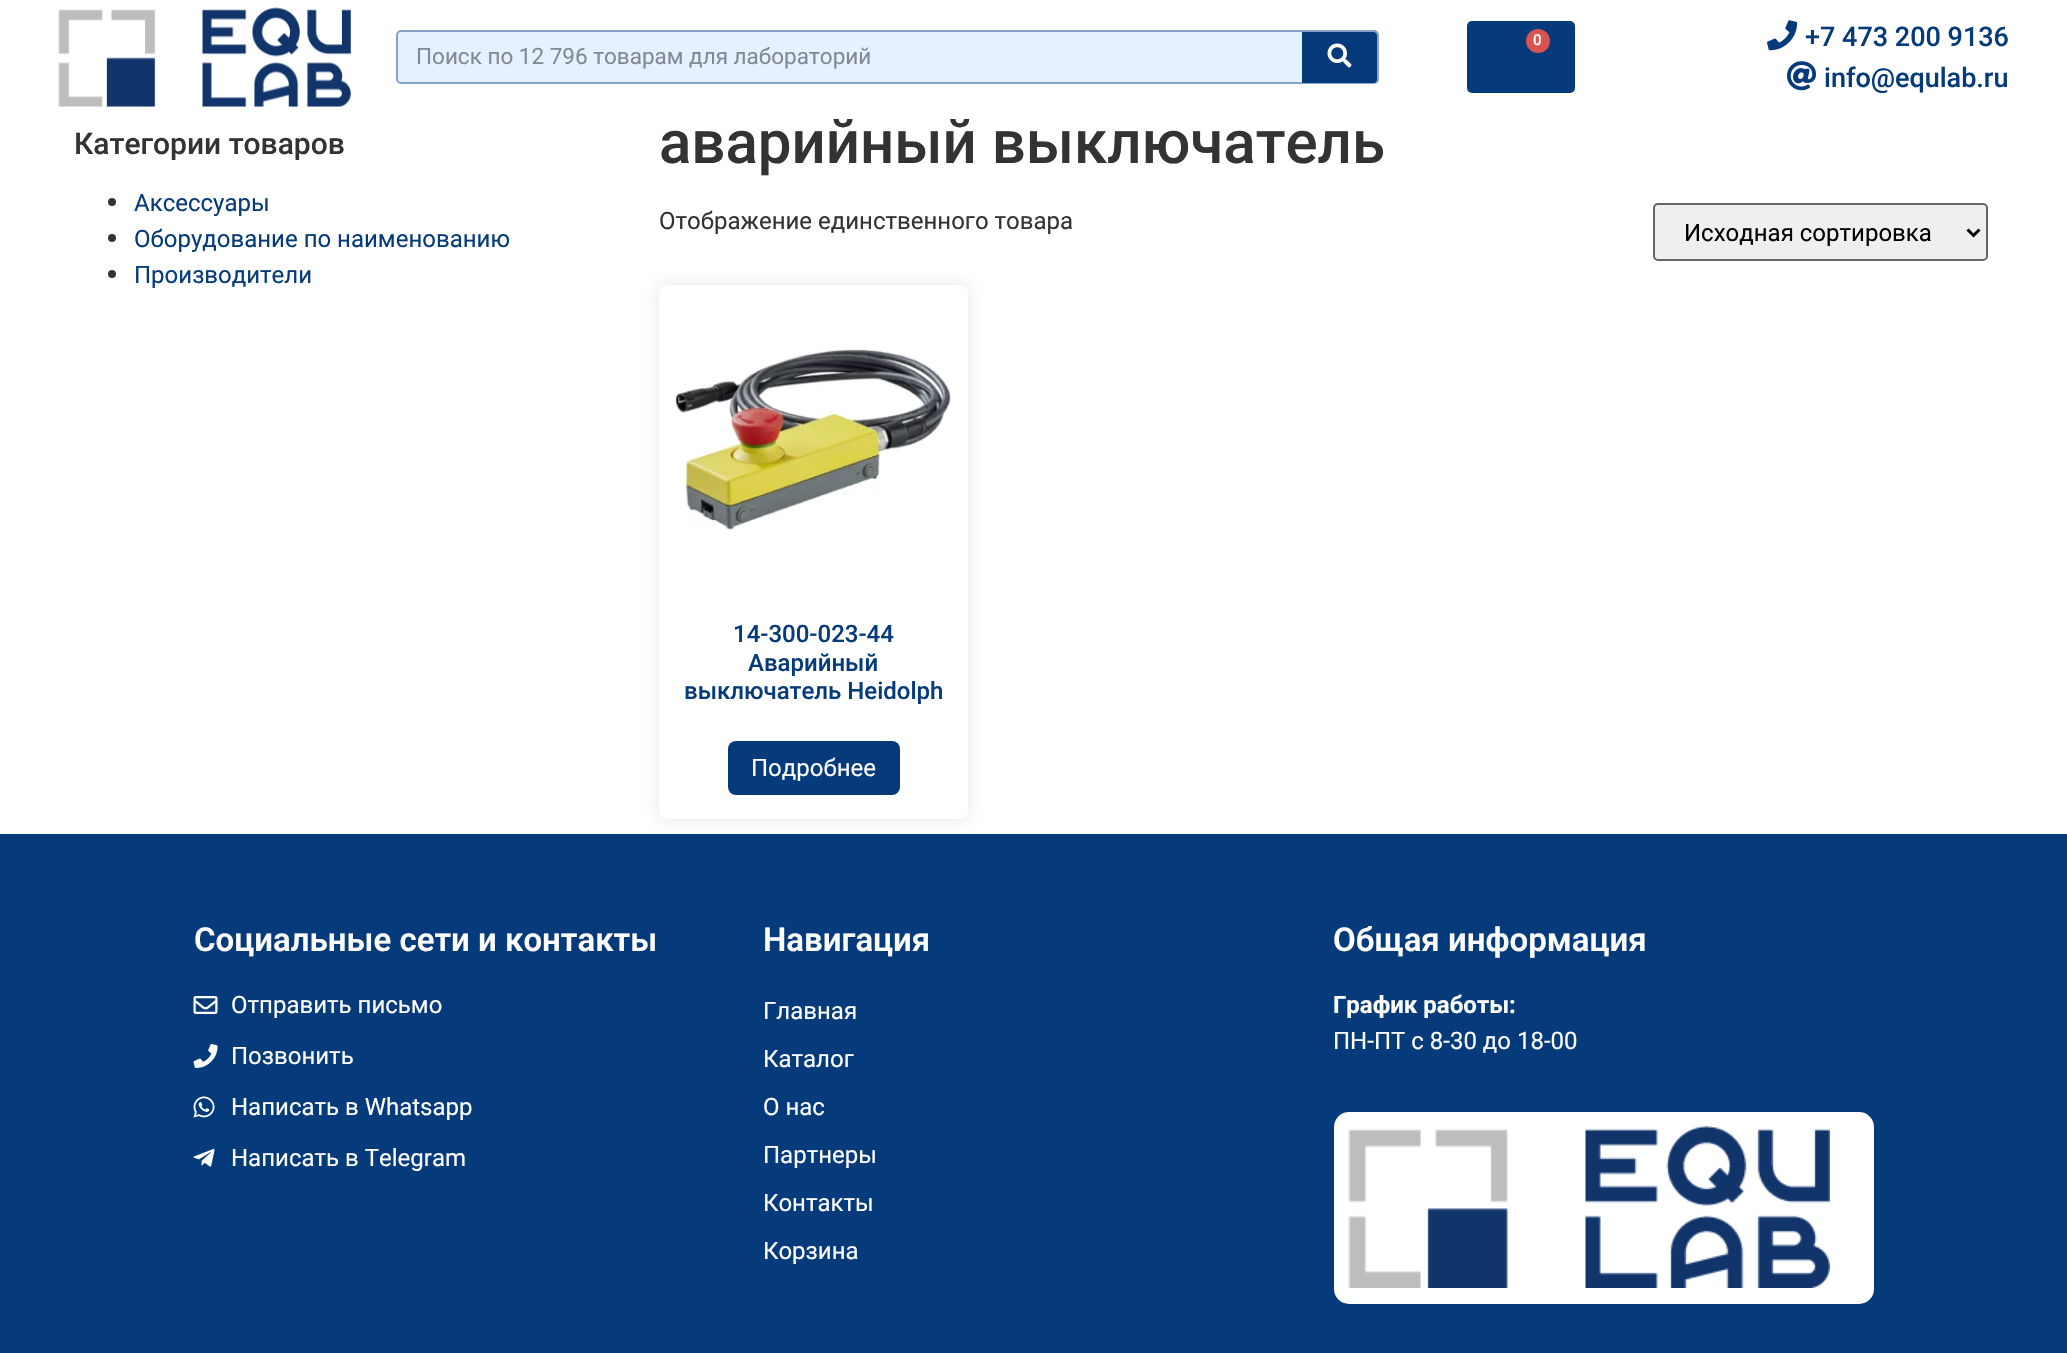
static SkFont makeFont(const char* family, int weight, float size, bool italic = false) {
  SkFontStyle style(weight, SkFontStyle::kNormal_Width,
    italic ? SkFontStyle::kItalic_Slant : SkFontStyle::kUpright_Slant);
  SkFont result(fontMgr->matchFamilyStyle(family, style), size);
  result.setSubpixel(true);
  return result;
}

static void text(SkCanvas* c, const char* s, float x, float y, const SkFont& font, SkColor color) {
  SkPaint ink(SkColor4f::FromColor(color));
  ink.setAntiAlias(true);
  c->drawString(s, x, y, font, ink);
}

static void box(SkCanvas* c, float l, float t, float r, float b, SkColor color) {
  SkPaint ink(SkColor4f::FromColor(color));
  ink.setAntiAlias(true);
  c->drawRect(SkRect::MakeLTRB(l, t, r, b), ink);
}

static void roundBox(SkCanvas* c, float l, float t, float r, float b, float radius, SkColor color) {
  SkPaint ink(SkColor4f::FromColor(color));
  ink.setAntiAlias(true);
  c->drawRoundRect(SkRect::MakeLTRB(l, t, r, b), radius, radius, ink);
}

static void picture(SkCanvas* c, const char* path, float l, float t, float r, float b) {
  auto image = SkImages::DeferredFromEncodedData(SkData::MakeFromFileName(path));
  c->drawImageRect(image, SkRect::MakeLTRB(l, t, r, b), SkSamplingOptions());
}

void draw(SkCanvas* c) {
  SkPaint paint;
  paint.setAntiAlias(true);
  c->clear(0xffffffff);
  picture(c, "img_01.png", 58, 7, 351, 107);
  roundBox(c, 1467, 21, 1575, 93, 5, 0xff063b7b);
  paint.setColor(0xffd9534f);
  c->drawCircle(1538, 41, 12, paint);
  SkFont face1 = makeFont("Roboto", 500, 15);
  text(c, "0", 1533, 45, face1, 0xffffffff);
  picture(c, "img_02.png", 1767, 20, 1798, 51);
  SkFont face2 = makeFont("Roboto", 500, 27);
  text(c, "+7 473 200 9136", 1805, 46, face2, 0xff063b7b);
  picture(c, "img_03.png", 1787, 61, 1816, 91);
  text(c, "info@equlab.ru", 1824, 87, face2, 0xff063b7b);
  paint.setColor(0xffe6f1ff);
  c->drawRoundRect(SkRect::MakeLTRB(397, 31, 1378, 83), 4, 4, paint);
  paint.setStyle(SkPaint::kStroke_Style);
  paint.setStrokeWidth(2);
  paint.setColor(0xff85a3c8);
  c->drawRoundRect(SkRect::MakeLTRB(397, 31, 1378, 83), 4, 4, paint);
  SkFont face3 = makeFont("Roboto", 400, 22.5f);
  text(c, "Поиск по 12 796 товарам для лабораторий", 416, 64, face3, 0xff828993);
  paint.setStyle(SkPaint::kFill_Style);
  paint.setColor(0xff063b7b);
  c->drawPath(SkPathBuilder().moveTo(1302, 32).lineTo(1374, 32).cubicTo(1375.5f, 32, 1377, 33.5f, 1377, 35).lineTo(1377, 80).cubicTo(1377, 81.5f, 1375.5f, 83, 1374, 83).lineTo(1302, 83).close().detach(), paint);
  picture(c, "img_04.png", 1327, 43, 1352, 68);
  SkFont face4 = makeFont("Roboto", 500, 30);
  text(c, "Категории товаров", 74, 154, face4, 0xff333333);
  paint.setColor(0xff333333);
  c->drawCircle(112, 202, 4, paint);
  SkFont face5 = makeFont("Roboto", 400, 24);
  text(c, "Аксессуары", 134, 211, face5, 0xff063b7b);
  c->drawCircle(112, 238, 4, paint);
  text(c, "Оборудование по наименованию", 134, 247, face5, 0xff063b7b);
  c->drawCircle(112, 274, 4, paint);
  text(c, "Производители", 134, 283, face5, 0xff063b7b);
  SkFont face6 = makeFont("Roboto", 500, 60);
  text(c, "аварийный выключатель", 659, 163, face6, 0xff333333);
  text(c, "Отображение единственного товара", 659, 229, face5, 0xff333333);
  paint.setColor(0xffefefef);
  c->drawRoundRect(SkRect::MakeLTRB(1654, 204, 1987, 260), 4, 4, paint);
  paint.setStyle(SkPaint::kStroke_Style);
  paint.setColor(0xff666666);
  c->drawRoundRect(SkRect::MakeLTRB(1654, 204, 1987, 260), 4, 4, paint);
  paint.setStrokeWidth(3);
  paint.setColor(0xff000000);
  c->drawPath(SkPathBuilder().moveTo(1967.5f, 229.5f).lineTo(1973.5f, 235.5f).lineTo(1979.5f, 229.5f).detach(), paint);
  text(c, "Исходная сортировка", 1684, 241, face5, 0xff000000);
  paint.setStyle(SkPaint::kFill_Style);
  paint.setColor(0x1a000000);
  paint.setMaskFilter(SkMaskFilter::MakeBlur(kNormal_SkBlurStyle, 7.5f));
  c->drawRoundRect(SkRect::MakeLTRB(659, 285, 968, 819), 8, 8, paint);
  paint.setMaskFilter(nullptr);
  roundBox(c, 659, 285, 968, 819, 8, 0xffffffff);
  picture(c, "img_05.png", 675, 349, 951, 530);
  SkFont face7 = makeFont("Roboto", 500, 24);
  text(c, "14-300-023-44", 733, 642, face7, 0xff063b7b);
  text(c, "Аварийный", 748, 671, face7, 0xff063b7b);
  text(c, "выключатель Heidolph", 684, 699, face7, 0xff063b7b);
  roundBox(c, 728, 741, 900, 795, 8, 0xff063b7b);
  text(c, "Подробнее", 751, 776, face5, 0xffffffff);
  box(c, 0, 834, 2067, 1353, 0xff063b7b);
  SkFont face8 = makeFont("Roboto", 600, 33);
  text(c, "Социальные сети и контакты", 194, 951, face8, 0xffffffff);
  picture(c, "img_06.png", 193, 996, 218, 1014);
  text(c, "Отправить письмо", 231, 1013, face5, 0xffffffff);
  picture(c, "img_07.png", 193, 1044, 218, 1068);
  text(c, "Позвонить", 231, 1064, face5, 0xffffffff);
  picture(c, "img_08.png", 193, 1096, 215, 1118);
  text(c, "Написать в Whatsapp", 231, 1115, face5, 0xffffffff);
  picture(c, "img_09.png", 193, 1149, 215, 1167);
  text(c, "Написать в Telegram", 231, 1166, face5, 0xffffffff);
  text(c, "Навигация", 763, 951, face8, 0xffffffff);
  text(c, "Главная", 763, 1019, face5, 0xffffffff);
  text(c, "Каталог", 763, 1067, face5, 0xffffffff);
  text(c, "О нас", 763, 1115, face5, 0xffffffff);
  text(c, "Партнеры", 763, 1163, face5, 0xffffffff);
  text(c, "Контакты", 763, 1211, face5, 0xffffffff);
  text(c, "Корзина", 763, 1259, face5, 0xffffffff);
  text(c, "Общая информация", 1333, 951, face8, 0xffffffff);
  SkFont face9 = makeFont("Roboto", 700, 24);
  text(c, "График работы:", 1333, 1013, face9, 0xffffffff);
  text(c, "ПН-ПТ с 8-30 до 18-00", 1333, 1049, face5, 0xffffffff);
  roundBox(c, 1334, 1112, 1874, 1304, 15, 0xffffffff);
  picture(c, "img_10.png", 1348, 1126, 1830, 1288);
}
